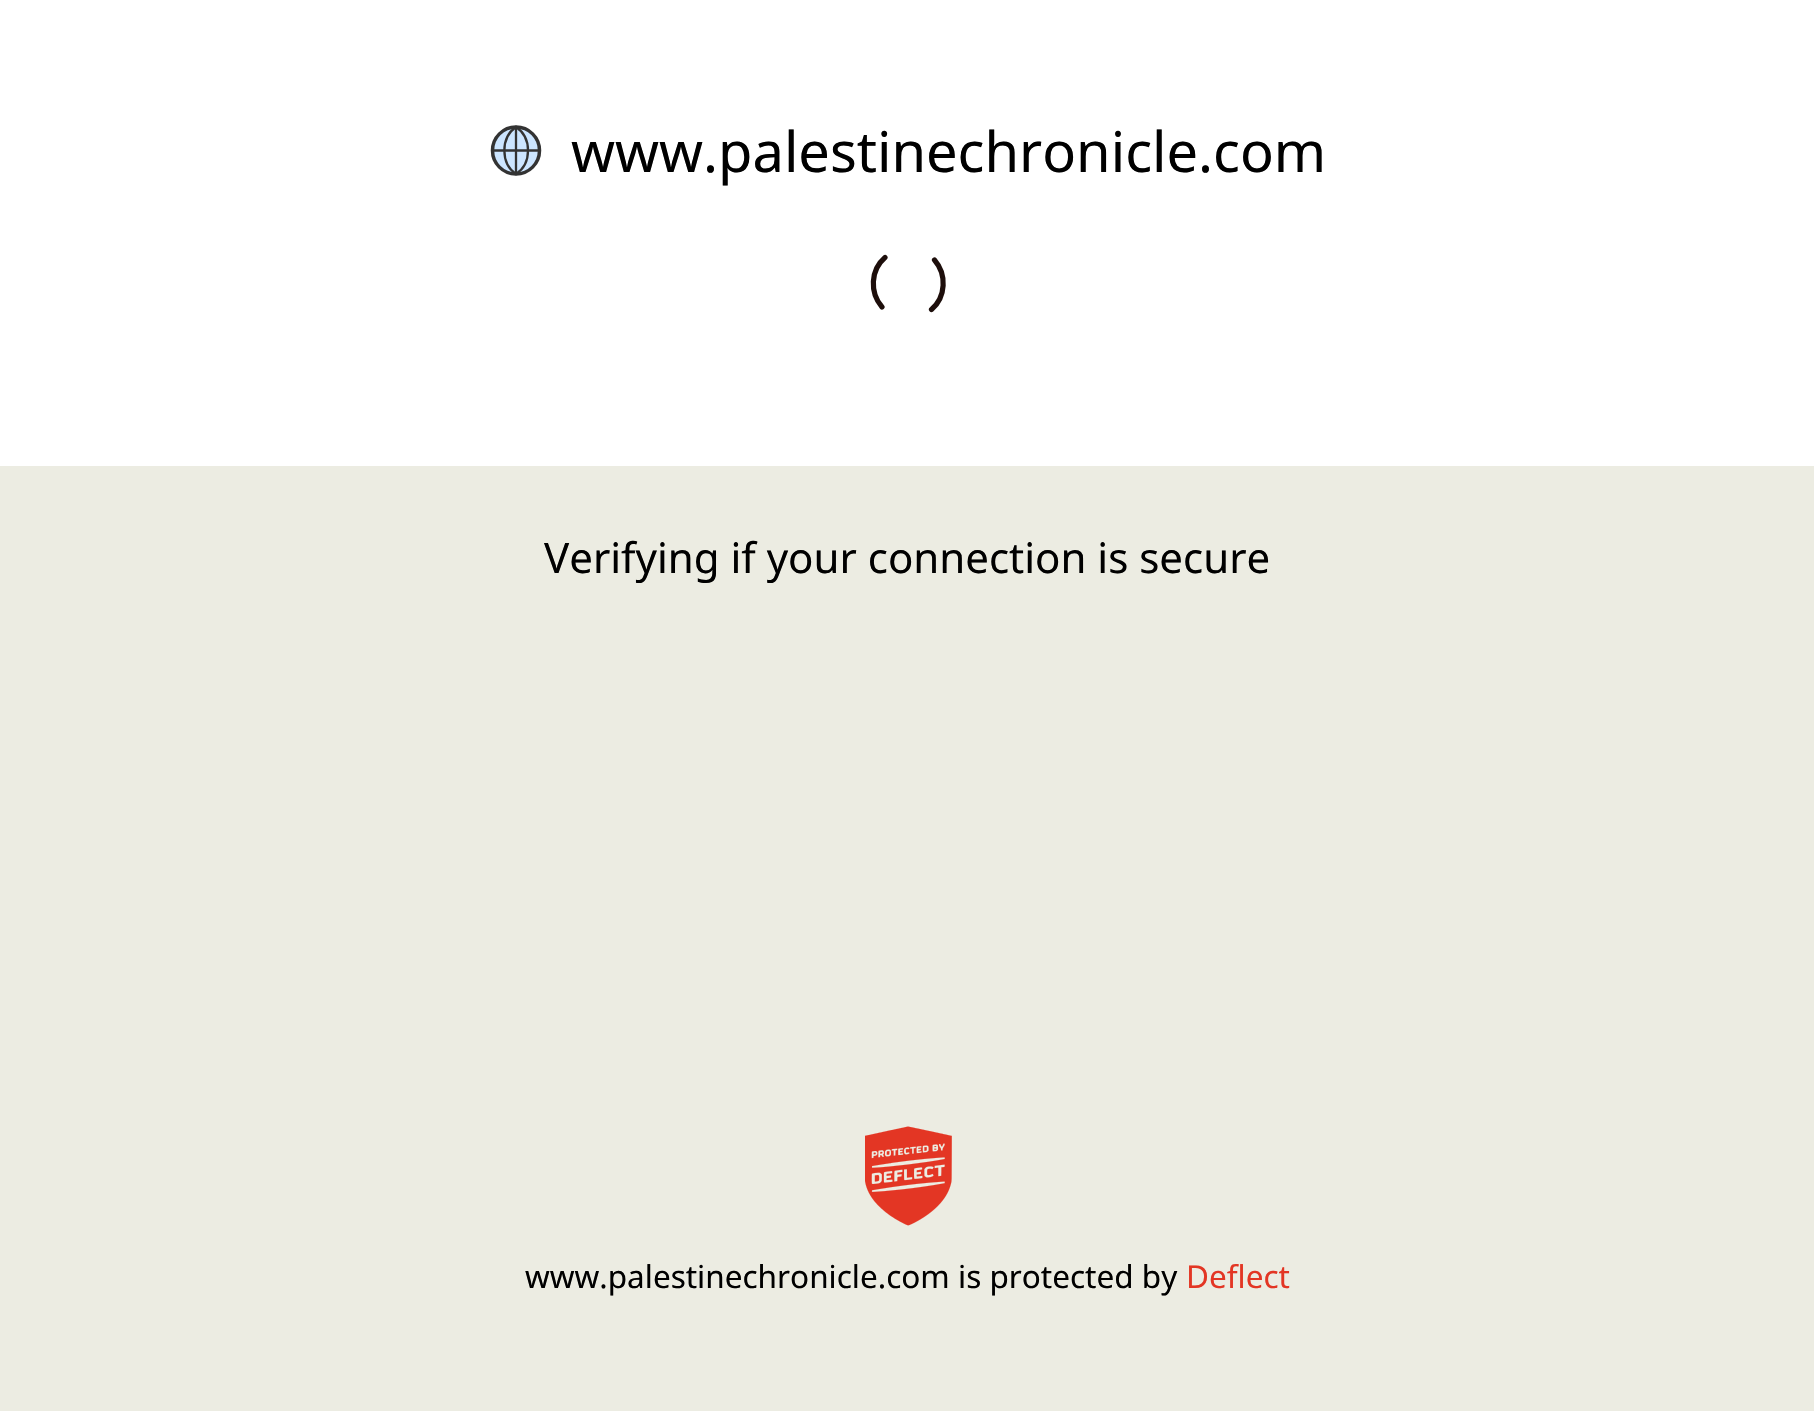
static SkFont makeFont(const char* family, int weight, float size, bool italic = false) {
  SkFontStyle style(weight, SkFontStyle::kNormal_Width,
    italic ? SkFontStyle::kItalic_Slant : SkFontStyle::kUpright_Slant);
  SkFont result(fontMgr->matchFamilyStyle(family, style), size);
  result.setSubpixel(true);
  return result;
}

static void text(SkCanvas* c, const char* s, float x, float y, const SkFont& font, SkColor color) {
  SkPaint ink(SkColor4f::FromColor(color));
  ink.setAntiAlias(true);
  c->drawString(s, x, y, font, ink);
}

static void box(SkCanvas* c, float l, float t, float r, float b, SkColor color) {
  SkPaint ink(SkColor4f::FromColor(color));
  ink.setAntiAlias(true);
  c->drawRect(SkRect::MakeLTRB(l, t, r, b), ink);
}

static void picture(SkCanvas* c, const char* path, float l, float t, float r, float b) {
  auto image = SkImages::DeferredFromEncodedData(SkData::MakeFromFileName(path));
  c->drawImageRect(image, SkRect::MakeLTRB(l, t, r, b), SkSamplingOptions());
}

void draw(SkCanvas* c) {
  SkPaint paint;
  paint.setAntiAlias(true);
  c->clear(0xffffffff);
  paint.setColor(0xffcce5ff);
  c->drawCircle(516, 150.5f, 23.5f, paint);
  paint.setStyle(SkPaint::kStroke_Style);
  paint.setStrokeWidth(3.5f);
  paint.setColor(0xff333333);
  c->drawCircle(516, 150.5f, 23.5f, paint);
  paint.setStrokeWidth(2.3f);
  c->drawPath(SkPathBuilder().moveTo(516, 127).cubicTo(532, 137.5f, 532, 163.5f, 516, 174).cubicTo(500.5f, 163.5f, 500.5f, 137.5f, 516, 127).close().detach(), paint);
  paint.setStrokeCap(SkPaint::kRound_Cap);
  c->drawPath(SkPathBuilder().moveTo(493, 150.5f).lineTo(539.5f, 150.5f).moveTo(516, 127).lineTo(516, 174).detach(), paint);
  SkFont face1 = makeFont("Noto Sans", 400, 56);
  text(c, "www.palestinechronicle.com", 571, 172, face1, 0xff000000);
  paint.setStrokeWidth(5.2f);
  paint.setColor(0xff1d0e0b);
  c->drawPath(SkPathBuilder().moveTo(934.5f, 260).cubicTo(947, 274.5f, 946, 297, 931.5f, 309.5f).moveTo(882, 307).cubicTo(869.5f, 292.5f, 870.5f, 270, 885, 257.5f).detach(), paint);
  box(c, 0, 466, 1814, 1411, 0xffecece2);
  SkFont face2 = makeFont("Noto Sans", 400, 42);
  text(c, "Verifying if your connection is secure", 544, 573, face2, 0xff000000);
  picture(c, "img_01.png", 865, 1126, 952, 1226);
  SkFont face3 = makeFont("Noto Sans", 400, 31.5f);
  text(c, "www.palestinechronicle.com is protected by", 525, 1288, face3, 0xff000000);
  text(c, "Deflect", 1186, 1288, face3, 0xffe33624);
}
